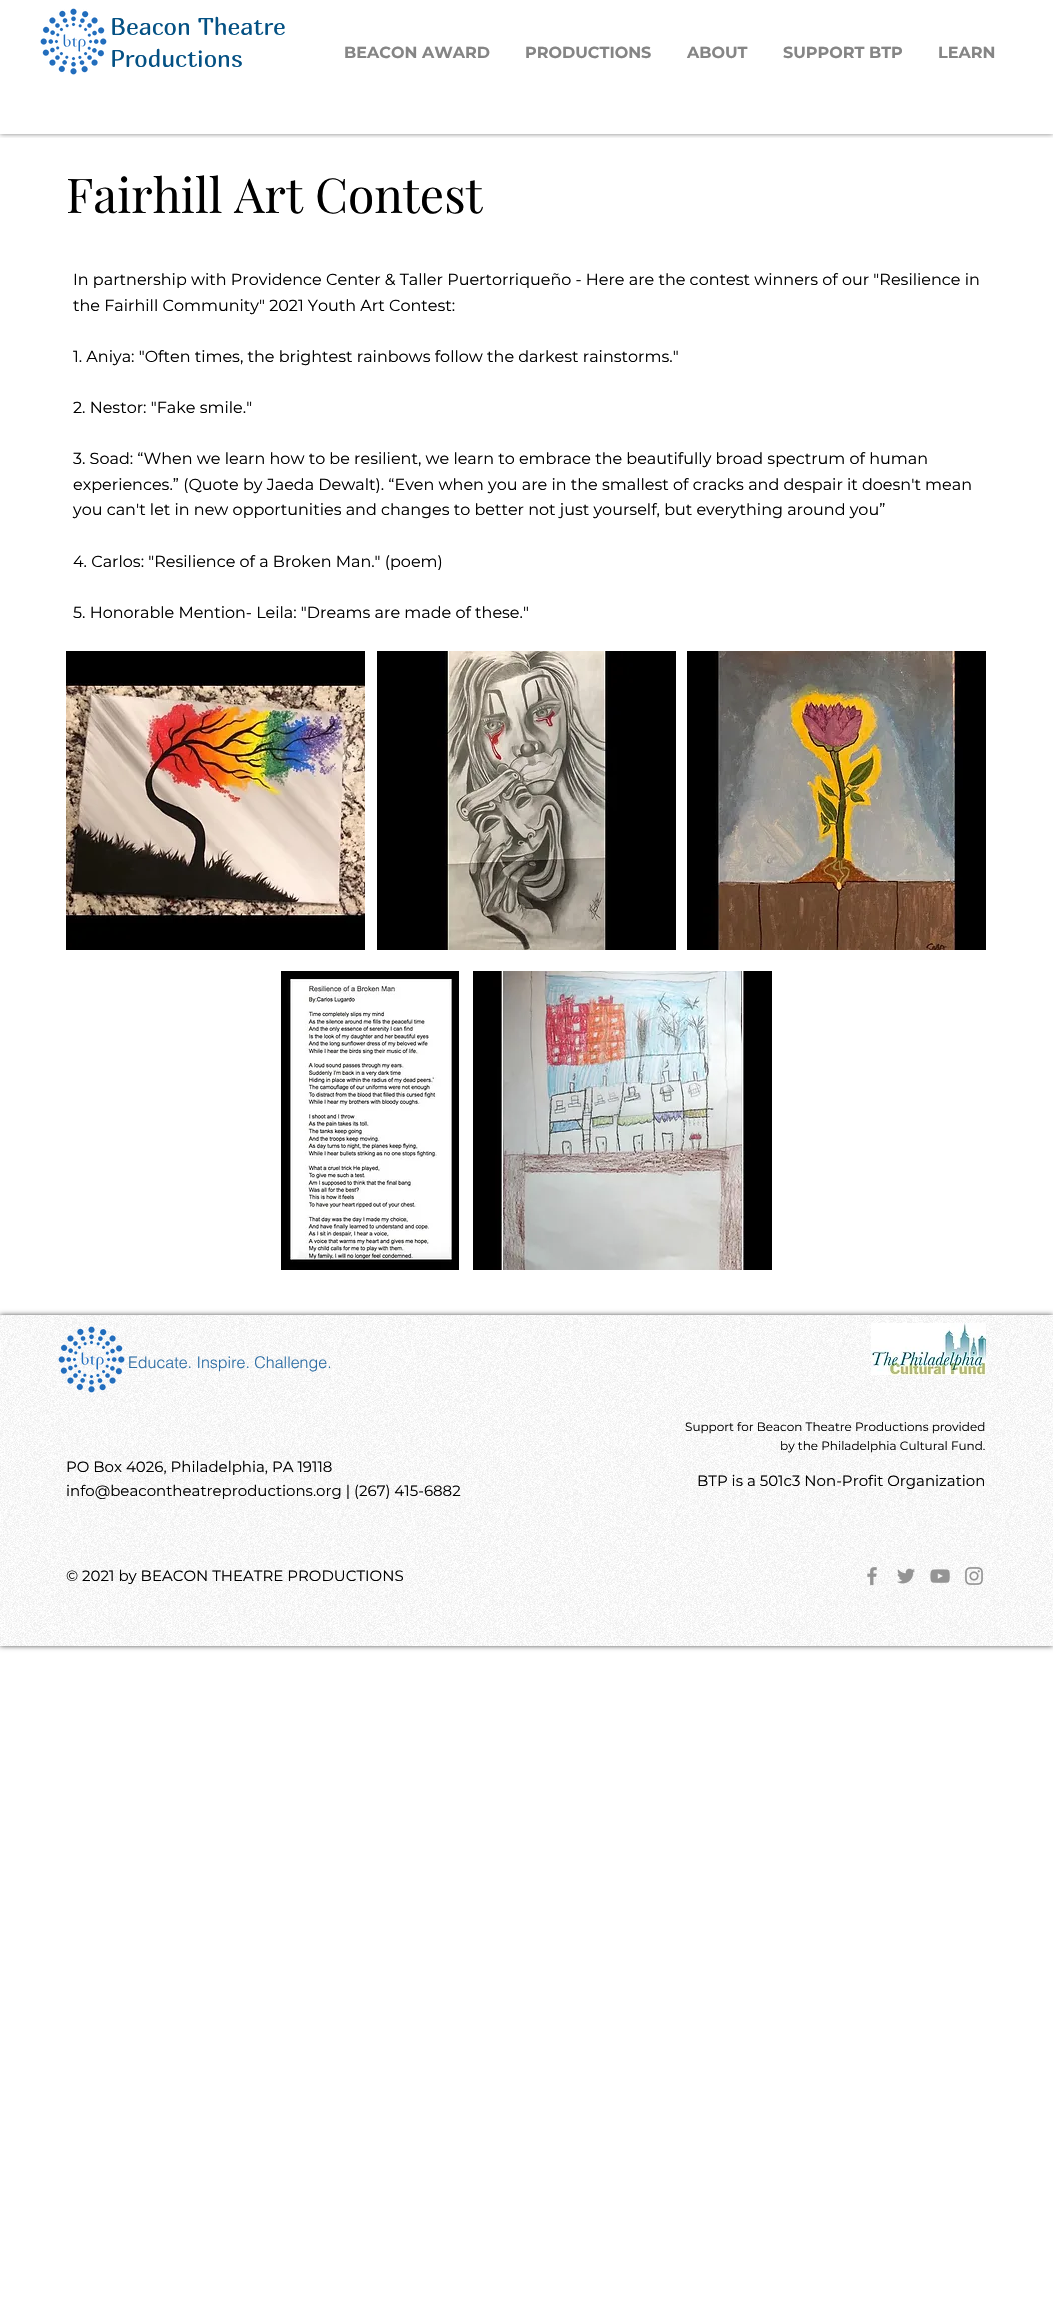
static SkFont makeFont(const char* family, int weight, float size, bool italic = false) {
  SkFontStyle style(weight, SkFontStyle::kNormal_Width,
    italic ? SkFontStyle::kItalic_Slant : SkFontStyle::kUpright_Slant);
  SkFont result(fontMgr->matchFamilyStyle(family, style), size);
  result.setSubpixel(true);
  return result;
}

static void text(SkCanvas* c, const char* s, float x, float y, const SkFont& font, SkColor color) {
  SkPaint ink(SkColor4f::FromColor(color));
  ink.setAntiAlias(true);
  c->drawString(s, x, y, font, ink);
}

static void picture(SkCanvas* c, const char* path, float l, float t, float r, float b) {
  auto image = SkImages::DeferredFromEncodedData(SkData::MakeFromFileName(path));
  c->drawImageRect(image, SkRect::MakeLTRB(l, t, r, b), SkSamplingOptions());
}

void draw(SkCanvas* c) {
  SkPaint paint;
  paint.setAntiAlias(true);
  c->clear(0xffffffff);
  c->save();
  c->clipRect(SkRect::MakeLTRB(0, 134, 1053, 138));
  paint.setColor(0x80000000);
  paint.setMaskFilter(SkMaskFilter::MakeBlur(kNormal_SkBlurStyle, 2.5f));
  c->drawRect(SkRect::MakeLTRB(0, 0, 1053, 134), paint);
  paint.setMaskFilter(nullptr);
  c->restore();
  picture(c, "img_01.png", 40, 8, 107, 75);
  SkFont face1 = makeFont("Marmelad", 400, 24);
  text(c, "Beacon Theatre", 110, 35, face1, 0xff045184);
  text(c, "Productions", 110, 67, face1, 0xff045184);
  SkFont face2 = makeFont("Montserrat", 700, 16);
  text(c, "BEACON AWARD", 344, 58, face2, 0xff858585);
  text(c, "PRODUCTIONS", 525, 58, face2, 0xff858585);
  text(c, "ABOUT", 687, 58, face2, 0xff858585);
  text(c, "SUPPORT BTP", 783, 58, face2, 0xff858585);
  text(c, "LEARN", 938, 58, face2, 0xff858585);
  SkFont face3 = makeFont("Playfair Display", 400, 48);
  text(c, "Fairhill Art Contest", 66, 213, face3, 0xff000000);
  SkFont face4 = makeFont("Montserrat", 400, 16);
  text(c, "In partnership with Providence Center & Taller Puertorriqueño - Here are the contest winners of our \"Resilience in", 73, 285, face4, 0xff000000);
  text(c, "the Fairhill Community\" 2021 Youth Art Contest:", 73, 311, face4, 0xff000000);
  text(c, "1. Aniya: \"Often times, the brightest rainbows follow the darkest rainstorms.\"", 73, 362, face4, 0xff000000);
  text(c, "2. Nestor: \"Fake smile.\"", 73, 413, face4, 0xff000000);
  text(c, "3. Soad: “When we learn how to be resilient, we learn to embrace the beautifully broad spectrum of human", 73, 464, face4, 0xff000000);
  text(c, "experiences.” (Quote by Jaeda Dewalt). “Even when you are in the smallest of cracks and despair it doesn't mean", 73, 490, face4, 0xff000000);
  text(c, "you can't let in new opportunities and changes to better not just yourself, but everything around you”", 73, 515, face4, 0xff000000);
  text(c, "4. Carlos: \"Resilience of a Broken Man.\" (poem)", 73, 567, face4, 0xff000000);
  text(c, "5. Honorable Mention- Leila: \"Dreams are made of these.\"", 73, 618, face4, 0xff000000);
  picture(c, "img_02.png", 66, 651, 365, 950);
  picture(c, "img_03.png", 377, 651, 676, 950);
  picture(c, "img_04.png", 687, 651, 986, 950);
  picture(c, "img_05.png", 281, 971, 459, 1270);
  picture(c, "img_06.png", 473, 971, 772, 1270);
  c->save();
  c->clipPath(SkPathBuilder(SkPathFillType::kEvenOdd).moveTo(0, 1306).lineTo(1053, 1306).lineTo(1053, 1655).lineTo(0, 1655).close().moveTo(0, 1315).lineTo(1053, 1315).lineTo(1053, 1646).lineTo(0, 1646).close().detach(), true);
  paint.setColor(0xb3000000);
  paint.setMaskFilter(SkMaskFilter::MakeBlur(kNormal_SkBlurStyle, 2.5f));
  c->drawRect(SkRect::MakeLTRB(0, 1315, 1053, 1646), paint);
  paint.setMaskFilter(nullptr);
  c->restore();
  picture(c, "img_07.png", 0, 1315, 1053, 1646);
  picture(c, "img_08.png", 58, 1326, 125, 1393);
  SkFont face5 = makeFont("helvetica", 300, 16);
  text(c, "Educate. Inspire. Challenge.", 128, 1368, face5, 0xff2b6ca3);
  picture(c, "img_09.png", 871, 1323, 986, 1375);
  SkFont face6 = makeFont("Montserrat", 400, 12);
  text(c, "Support for Beacon Theatre Productions provided", 685, 1431, face6, 0xff000000);
  text(c, "by the Philadelphia Cultural Fund.", 780, 1450, face6, 0xff000000);
  SkFont face7 = makeFont("Montserrat", 400, 15);
  text(c, "PO Box 4026, Philadelphia, PA 19118", 66, 1472, face7, 0xff000000);
  text(c, "info@beacontheatreproductions.org | (267) 415-6882", 66, 1496, face7, 0xff000000);
  text(c, "BTP is a 501c3 Non-Profit Organization", 697, 1486, face7, 0xff000000);
  text(c, "© 2021 by BEACON THEATRE PRODUCTIONS", 66, 1581, face7, 0xff000000);
  picture(c, "img_10.png", 867, 1567, 877, 1586);
  picture(c, "img_11.png", 897, 1568, 915, 1584);
  picture(c, "img_12.png", 930, 1569, 950, 1583);
  picture(c, "img_13.png", 965, 1567, 983, 1585);
}
